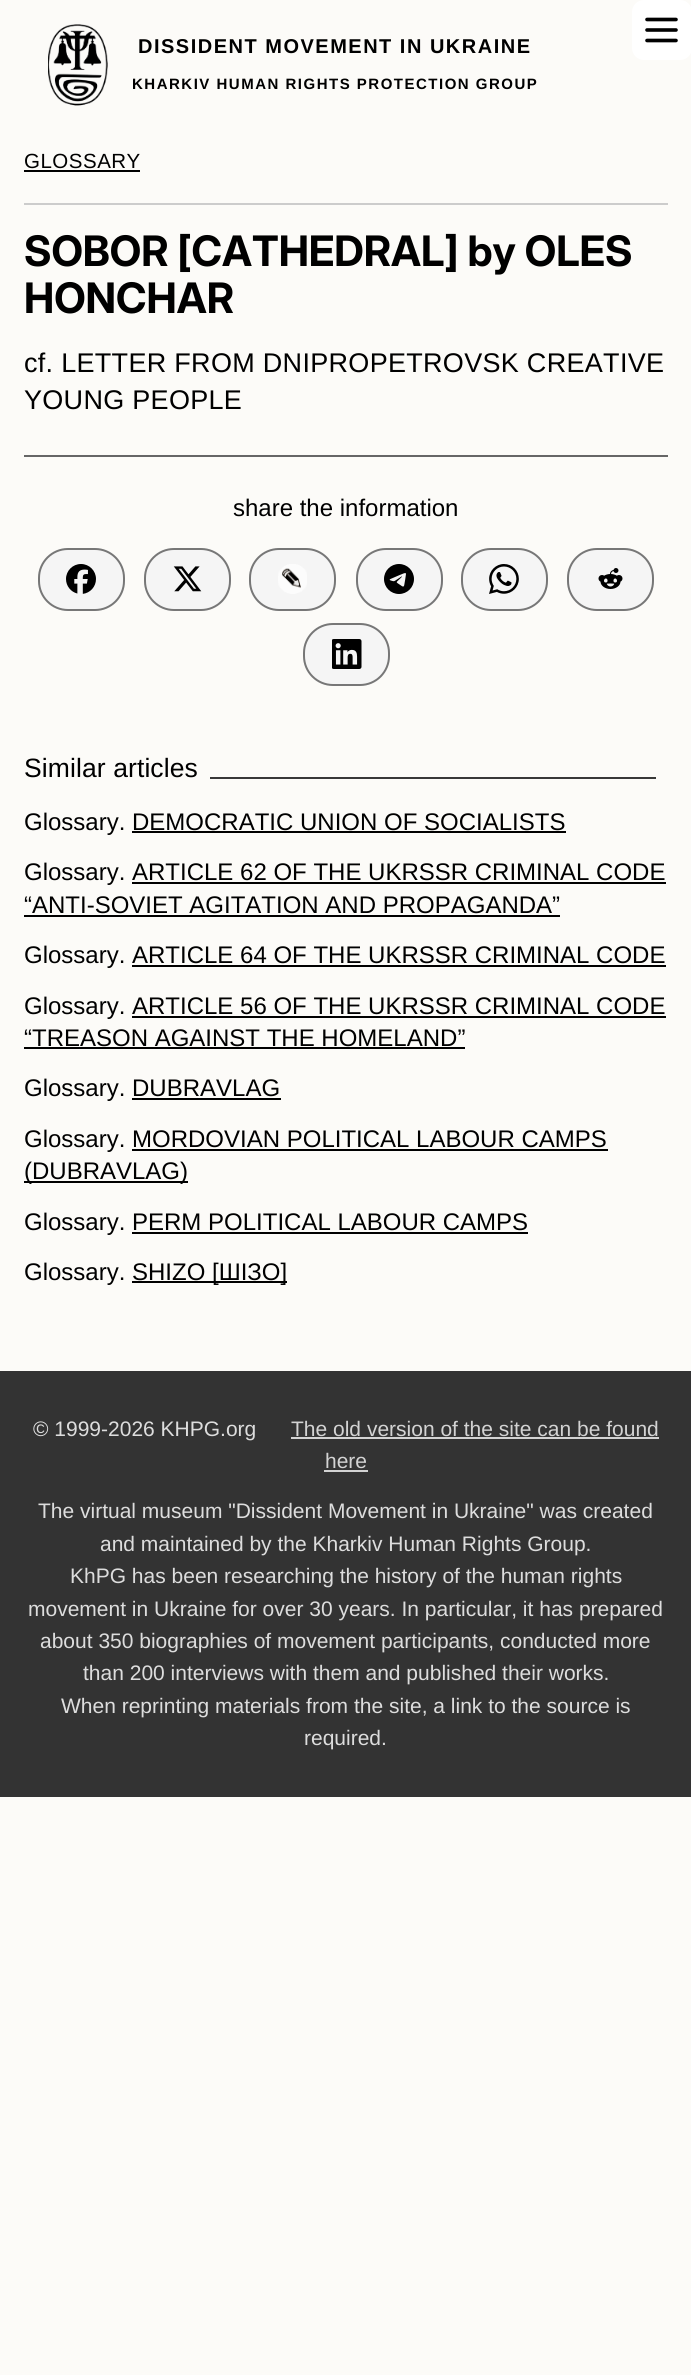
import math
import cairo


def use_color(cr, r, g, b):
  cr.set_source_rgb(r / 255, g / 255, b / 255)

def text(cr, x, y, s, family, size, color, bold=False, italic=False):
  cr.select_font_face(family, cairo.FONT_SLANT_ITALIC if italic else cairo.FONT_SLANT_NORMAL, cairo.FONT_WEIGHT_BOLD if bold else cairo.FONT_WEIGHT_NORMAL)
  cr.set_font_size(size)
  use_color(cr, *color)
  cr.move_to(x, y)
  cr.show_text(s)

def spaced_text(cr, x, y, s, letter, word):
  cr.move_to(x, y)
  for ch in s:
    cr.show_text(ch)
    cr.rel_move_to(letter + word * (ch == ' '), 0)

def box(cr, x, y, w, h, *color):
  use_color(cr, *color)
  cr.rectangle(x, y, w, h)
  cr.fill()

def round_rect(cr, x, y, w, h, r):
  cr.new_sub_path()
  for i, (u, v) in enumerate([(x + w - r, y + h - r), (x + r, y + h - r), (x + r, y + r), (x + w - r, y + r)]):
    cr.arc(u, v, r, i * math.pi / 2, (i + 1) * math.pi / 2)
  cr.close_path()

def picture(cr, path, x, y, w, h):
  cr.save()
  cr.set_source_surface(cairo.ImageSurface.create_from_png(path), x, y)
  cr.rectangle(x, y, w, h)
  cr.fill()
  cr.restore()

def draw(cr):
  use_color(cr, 252, 251, 248)
  cr.paint()
  use_color(cr, 255, 255, 255)
  round_rect(cr, 632, 0, 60, 60, 12)
  cr.fill()
  cr.new_path()
  cr.move_to(647, 19.5)
  cr.line_to(676, 19.5)
  cr.move_to(647, 30)
  cr.line_to(676, 30)
  cr.move_to(647, 40.5)
  cr.line_to(676, 40.5)
  use_color(cr, 0, 0, 0)
  cr.set_line_width(3.6)
  cr.set_line_cap(cairo.LINE_CAP_ROUND)
  cr.set_line_join(cairo.LINE_JOIN_ROUND)
  cr.stroke()
  picture(cr, "img_01.png", 48, 24, 60, 82)
  box(cr, 24, 170, 116, 2, 0, 0, 0)
  box(cr, 24, 203, 644, 2, 204, 204, 204)
  box(cr, 24, 455, 644, 2, 102, 102, 102)
  use_color(cr, 245, 245, 245)
  round_rect(cr, 38, 548, 87, 63, 30)
  cr.fill()
  picture(cr, "img_02.png", 66, 564, 30, 30)
  round_rect(cr, 39, 549, 85, 61, 29)
  use_color(cr, 119, 119, 119)
  cr.set_line_width(2)
  cr.set_line_cap(cairo.LINE_CAP_BUTT)
  cr.set_line_join(cairo.LINE_JOIN_MITER)
  cr.stroke()
  use_color(cr, 245, 245, 245)
  round_rect(cr, 144, 548, 87, 63, 30)
  cr.fill()
  picture(cr, "img_03.png", 173, 566, 29, 26)
  round_rect(cr, 145, 549, 85, 61, 29)
  use_color(cr, 119, 119, 119)
  cr.stroke()
  use_color(cr, 245, 245, 245)
  round_rect(cr, 249, 548, 87, 63, 30)
  cr.fill()
  picture(cr, "img_04.png", 278, 564, 29, 30)
  round_rect(cr, 250, 549, 85, 61, 29)
  use_color(cr, 119, 119, 119)
  cr.stroke()
  use_color(cr, 245, 245, 245)
  round_rect(cr, 356, 548, 87, 63, 30)
  cr.fill()
  picture(cr, "img_05.png", 384, 564, 30, 30)
  round_rect(cr, 357, 549, 85, 61, 29)
  use_color(cr, 119, 119, 119)
  cr.stroke()
  use_color(cr, 245, 245, 245)
  round_rect(cr, 461, 548, 87, 63, 30)
  cr.fill()
  picture(cr, "img_06.png", 489, 564, 30, 30)
  round_rect(cr, 462, 549, 85, 61, 29)
  use_color(cr, 119, 119, 119)
  cr.stroke()
  use_color(cr, 245, 245, 245)
  round_rect(cr, 567, 548, 87, 63, 30)
  cr.fill()
  picture(cr, "img_07.png", 598, 568, 25, 21)
  round_rect(cr, 568, 549, 85, 61, 29)
  use_color(cr, 119, 119, 119)
  cr.stroke()
  use_color(cr, 245, 245, 245)
  round_rect(cr, 303, 623, 87, 63, 30)
  cr.fill()
  picture(cr, "img_08.png", 332, 639, 30, 30)
  round_rect(cr, 304, 624, 85, 61, 29)
  use_color(cr, 119, 119, 119)
  cr.stroke()
  box(cr, 210, 777, 446, 2, 56, 56, 56)
  box(cr, 132, 831, 434, 2, 0, 0, 0)
  box(cr, 132, 882, 534, 2, 0, 0, 0)
  box(cr, 24, 915, 536, 2, 0, 0, 0)
  box(cr, 132, 965, 534, 2, 0, 0, 0)
  box(cr, 132, 1016, 534, 2, 0, 0, 0)
  box(cr, 24, 1047, 441, 2, 0, 0, 0)
  box(cr, 132, 1098, 149, 2, 0, 0, 0)
  box(cr, 132, 1149, 476, 2, 0, 0, 0)
  box(cr, 24, 1181, 164, 2, 0, 0, 0)
  box(cr, 132, 1232, 396, 2, 0, 0, 0)
  box(cr, 132, 1281, 155, 2, 0, 0, 0)
  box(cr, 0, 1371, 691, 426, 51, 51, 51)
  box(cr, 291, 1437, 368, 2, 211, 211, 211)
  box(cr, 324, 1470, 44, 2, 211, 211, 211)
  cr.select_font_face("Liberation Sans", cairo.FONT_SLANT_NORMAL, cairo.FONT_WEIGHT_BOLD)
  cr.set_font_size(20)
  use_color(cr, 0, 0, 0)
  spaced_text(cr, 138, 53, "DISSIDENT MOVEMENT IN UKRAINE", 1.5, 0)
  cr.set_font_size(15)
  spaced_text(cr, 132, 89, "KHARKIV HUMAN RIGHTS PROTECTION GROUP", 1.5, 0)
  cr.select_font_face("Liberation Sans")
  cr.set_font_size(20.5)
  spaced_text(cr, 24, 168, "GLOSSARY", 0.5, 0)
  text(cr, 24, 266, "SOBOR [CATHEDRAL] by OLES", "Inter Display", 42, (0, 0, 0), bold=True)
  text(cr, 24, 313, "HONCHAR", "Inter Display", 42, (0, 0, 0), bold=True)
  cr.select_font_face("Liberation Sans")
  cr.set_font_size(27)
  spaced_text(cr, 24, 372, "cf. LETTER FROM DNIPROPETROVSK CREATIVE", 0.3, 0)
  spaced_text(cr, 24, 409, "YOUNG PEOPLE", 0.3, 0)
  text(cr, 233, 516, "share the information", "Liberation Sans", 24, (0, 0, 0))
  cr.set_font_size(26.5)
  spaced_text(cr, 24, 777, "Similar articles", 0.1, 0)
  text(cr, 24, 830, "Glossary. DEMOCRATIC UNION OF SOCIALISTS", "Liberation Sans", 24, (0, 0, 0))
  text(cr, 24, 880, "Glossary. ARTICLE 62 OF THE UKRSSR CRIMINAL CODE", "Liberation Sans", 24, (0, 0, 0))
  text(cr, 24, 913, "“ANTI-SOVIET AGITATION AND PROPAGANDA”", "Liberation Sans", 24, (0, 0, 0))
  text(cr, 24, 963, "Glossary. ARTICLE 64 OF THE UKRSSR CRIMINAL CODE", "Liberation Sans", 24, (0, 0, 0))
  text(cr, 24, 1014, "Glossary. ARTICLE 56 OF THE UKRSSR CRIMINAL CODE", "Liberation Sans", 24, (0, 0, 0))
  text(cr, 24, 1046, "“TREASON AGAINST THE HOMELAND”", "Liberation Sans", 24, (0, 0, 0))
  text(cr, 24, 1096, "Glossary. DUBRAVLAG", "Liberation Sans", 24, (0, 0, 0))
  text(cr, 24, 1147, "Glossary. MORDOVIAN POLITICAL LABOUR CAMPS", "Liberation Sans", 24, (0, 0, 0))
  text(cr, 24, 1179, "(DUBRAVLAG)", "Liberation Sans", 24, (0, 0, 0))
  text(cr, 24, 1230, "Glossary. PERM POLITICAL LABOUR CAMPS", "Liberation Sans", 24, (0, 0, 0))
  text(cr, 24, 1280, "Glossary.", "Liberation Sans", 24, (0, 0, 0))
  text(cr, 132, 1280, "SHIZO [ШІЗО]", "Liberation Sans", 24, (0, 0, 0))
  text(cr, 33, 1436, "© 1999-2026 KHPG.org", "Liberation Sans", 21, (221, 221, 221))
  text(cr, 291, 1436, "The old version of the site can be found", "Liberation Sans", 21, (211, 211, 211))
  text(cr, 325, 1468, "here", "Liberation Sans", 21, (211, 211, 211))
  text(cr, 38, 1518, "The virtual museum \"Dissident Movement in Ukraine\" was created", "Liberation Sans", 21, (221, 221, 221))
  text(cr, 100, 1551, "and maintained by the Kharkiv Human Rights Group.", "Liberation Sans", 21, (221, 221, 221))
  text(cr, 70, 1583, "KhPG has been researching the history of the human rights", "Liberation Sans", 21, (221, 221, 221))
  text(cr, 28, 1616, "movement in Ukraine for over 30 years. In particular, it has prepared", "Liberation Sans", 21, (221, 221, 221))
  text(cr, 40, 1648, "about 350 biographies of movement participants, conducted more", "Liberation Sans", 21, (221, 221, 221))
  text(cr, 83, 1680, "than 200 interviews with them and published their works.", "Liberation Sans", 21, (221, 221, 221))
  text(cr, 61, 1713, "When reprinting materials from the site, a link to the source is", "Liberation Sans", 21, (221, 221, 221))
  text(cr, 304, 1745, "required.", "Liberation Sans", 21, (221, 221, 221))


surface = cairo.ImageSurface(cairo.FORMAT_RGB24, 691, 2375)
cr = cairo.Context(surface)
options = cairo.FontOptions()
options.set_hint_metrics(cairo.HINT_METRICS_OFF)
options.set_hint_style(cairo.HINT_STYLE_NONE)
cr.set_font_options(options)
cr.set_miter_limit(4)
draw(cr)
surface.write_to_png("out.png")
